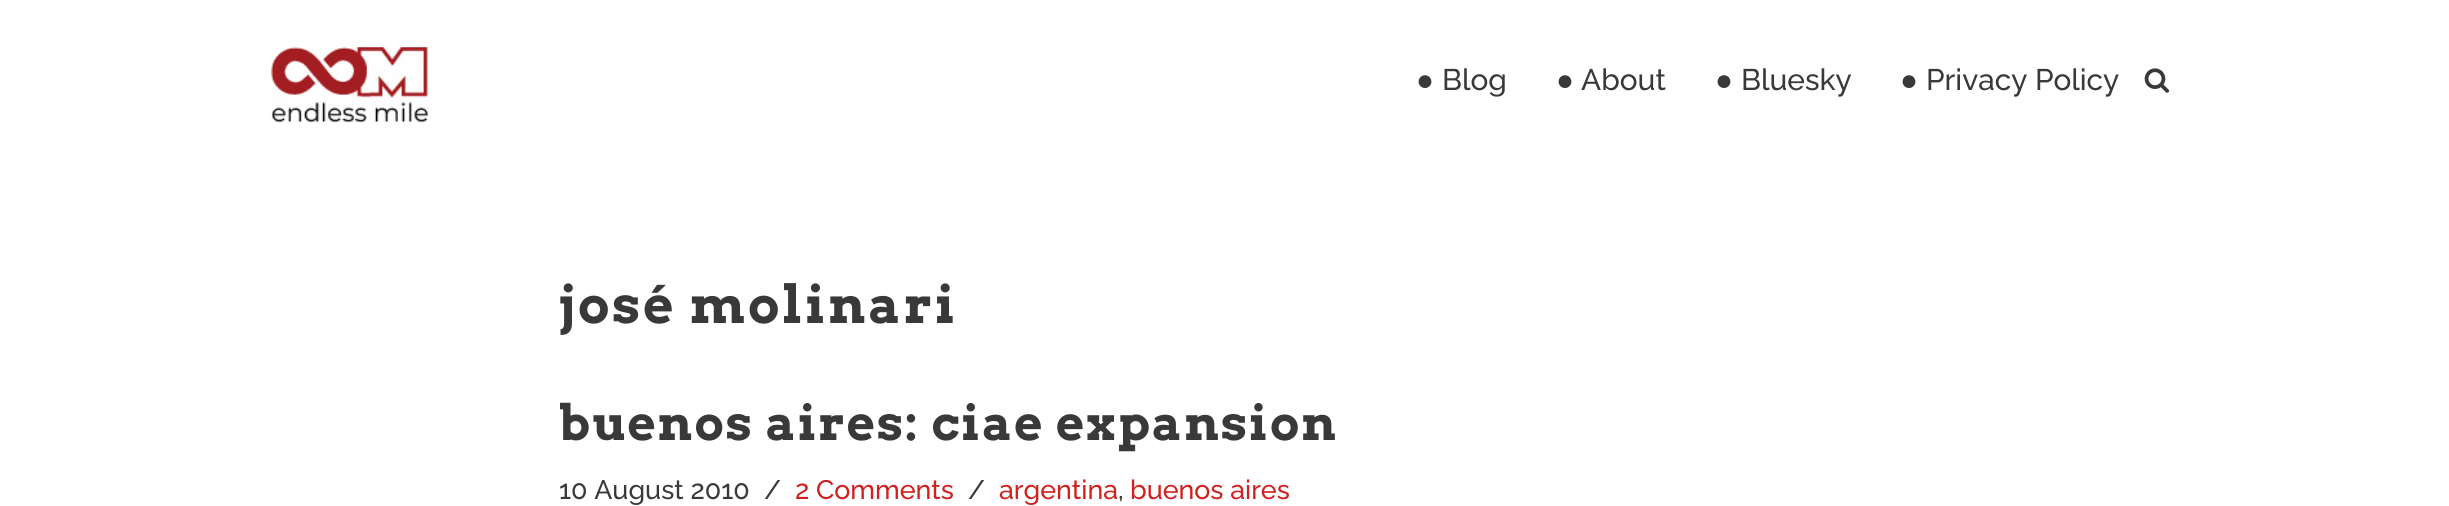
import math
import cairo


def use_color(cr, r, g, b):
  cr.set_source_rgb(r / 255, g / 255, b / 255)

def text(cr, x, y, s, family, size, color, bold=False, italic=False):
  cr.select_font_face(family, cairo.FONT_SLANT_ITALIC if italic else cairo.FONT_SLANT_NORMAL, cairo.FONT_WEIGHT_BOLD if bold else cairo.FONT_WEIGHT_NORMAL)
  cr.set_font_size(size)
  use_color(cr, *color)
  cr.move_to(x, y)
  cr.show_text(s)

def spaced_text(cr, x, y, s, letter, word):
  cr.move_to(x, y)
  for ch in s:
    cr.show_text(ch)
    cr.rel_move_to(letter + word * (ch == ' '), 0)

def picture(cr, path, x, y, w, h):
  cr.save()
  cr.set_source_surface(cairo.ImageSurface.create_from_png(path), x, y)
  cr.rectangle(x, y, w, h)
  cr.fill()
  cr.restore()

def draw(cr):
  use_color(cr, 255, 255, 255)
  cr.paint()
  picture(cr, "img_01.png", 271, 47, 158, 76)
  picture(cr, "img_02.png", 2144, 68, 25, 25)
  text(cr, 1416, 90, "●", "Liberation Serif", 29.75, (57, 57, 57))
  text(cr, 1442, 90, "Blog", "Raleway Medium", 29.75, (57, 57, 57))
  text(cr, 1556, 90, "●", "Liberation Serif", 29.75, (57, 57, 57))
  text(cr, 1581, 90, "About", "Raleway Medium", 29.75, (57, 57, 57))
  text(cr, 1715, 90, "●", "Liberation Serif", 29.75, (57, 57, 57))
  text(cr, 1741, 90, "Bluesky", "Raleway Medium", 29.75, (57, 57, 57))
  text(cr, 1900, 90, "●", "Liberation Serif", 29.75, (57, 57, 57))
  text(cr, 1926, 90, "Privacy Policy", "Raleway Medium", 29.75, (57, 57, 57))
  cr.select_font_face("Arvo", cairo.FONT_SLANT_NORMAL, cairo.FONT_WEIGHT_BOLD)
  cr.set_font_size(52.5)
  spaced_text(cr, 559, 323, "josé molinari", 2.75, 0)
  cr.save()
  cr.rectangle(560, 396, 1332, 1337)
  cr.clip()
  cr.set_font_size(49)
  spaced_text(cr, 559, 440, "buenos aires: ciae expansion", 1.75, 0)
  cr.restore()
  text(cr, 559, 499, "10 August 2010", "Raleway Medium", 26.75, (57, 57, 57))
  text(cr, 764, 499, "/", "Raleway Medium", 26.75, (57, 57, 57))
  text(cr, 795, 499, "2 Comments", "Raleway Medium", 26.75, (208, 33, 30))
  text(cr, 968, 499, "/", "Raleway Medium", 26.75, (57, 57, 57))
  text(cr, 999, 499, "argentina", "Raleway Medium", 26.75, (208, 33, 30))
  text(cr, 1118, 499, ",", "Raleway Medium", 26.75, (57, 57, 57))
  text(cr, 1130, 499, "buenos aires", "Raleway Medium", 26.75, (208, 33, 30))


surface = cairo.ImageSurface(cairo.FORMAT_RGB24, 2449, 506)
cr = cairo.Context(surface)
options = cairo.FontOptions()
options.set_hint_metrics(cairo.HINT_METRICS_OFF)
options.set_hint_style(cairo.HINT_STYLE_NONE)
cr.set_font_options(options)
cr.set_miter_limit(4)
draw(cr)
surface.write_to_png("out.png")
